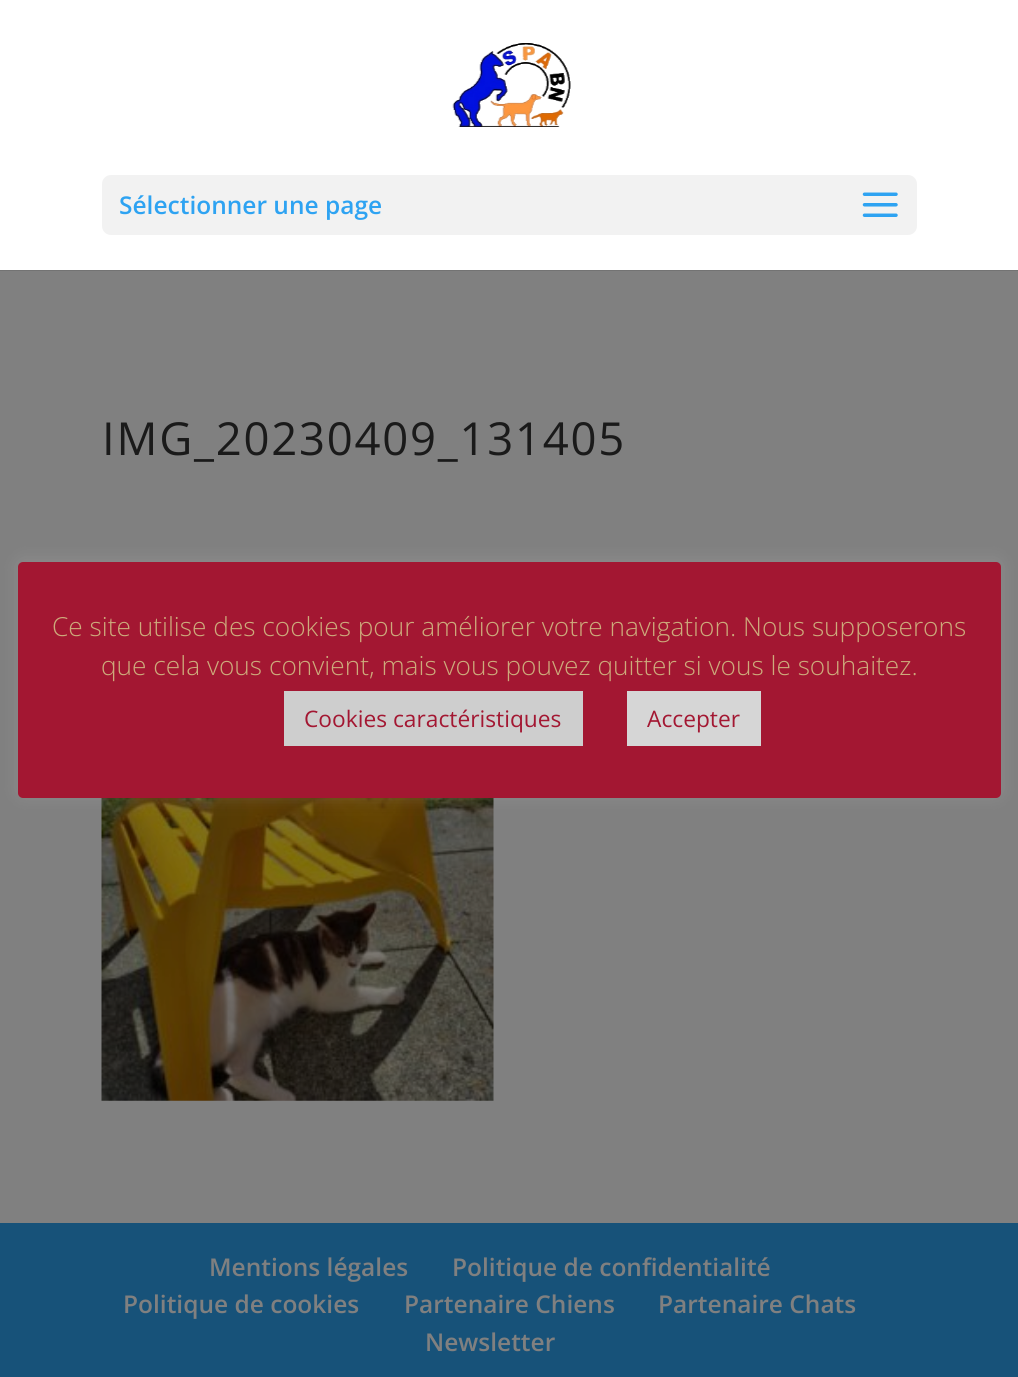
import math
import cairo


def use_color(cr, r, g, b):
  cr.set_source_rgb(r / 255, g / 255, b / 255)

def text(cr, x, y, s, family, size, color, bold=False, italic=False):
  cr.select_font_face(family, cairo.FONT_SLANT_ITALIC if italic else cairo.FONT_SLANT_NORMAL, cairo.FONT_WEIGHT_BOLD if bold else cairo.FONT_WEIGHT_NORMAL)
  cr.set_font_size(size)
  use_color(cr, *color)
  cr.move_to(x, y)
  cr.show_text(s)

def spaced_text(cr, x, y, s, letter, word):
  cr.move_to(x, y)
  for ch in s:
    cr.show_text(ch)
    cr.rel_move_to(letter + word * (ch == ' '), 0)

def box(cr, x, y, w, h, *color):
  use_color(cr, *color)
  cr.rectangle(x, y, w, h)
  cr.fill()

def round_rect(cr, x, y, w, h, r):
  cr.new_sub_path()
  for i, (u, v) in enumerate([(x + w - r, y + h - r), (x + r, y + h - r), (x + r, y + r), (x + w - r, y + r)]):
    cr.arc(u, v, r, i * math.pi / 2, (i + 1) * math.pi / 2)
  cr.close_path()

def shadow(cr, x, y, w, h, r, blur, alpha):
  cr.push_group_with_content(cairo.CONTENT_ALPHA)
  cr.set_operator(cairo.OPERATOR_SOURCE)
  for i in range(15, -16, -2):
    e = blur * i / 6
    if min(w, h) + 2 * e > 0:
      cr.set_source_rgba(0, 0, 0, alpha * math.erfc((i - 1) / 8.5) / 2)
      round_rect(cr, x - e, y - e, w + 2 * e, h + 2 * e, max(0, min(r + e + blur * .6, min(w, h) / 2 + e)))
      cr.fill()
  cr.mask(cr.pop_group())

def picture(cr, path, x, y, w, h):
  cr.save()
  cr.set_source_surface(cairo.ImageSurface.create_from_png(path), x, y)
  cr.rectangle(x, y, w, h)
  cr.fill()
  cr.restore()

def draw(cr):
  use_color(cr, 128, 128, 128)
  cr.paint()
  use_color(cr, 115, 115, 115)
  cr.new_path()
  cr.move_to(0, 270)
  cr.line_to(0, 271)
  cr.line_to(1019, 271)
  cr.line_to(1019, 2)
  cr.line_to(1018, 2)
  cr.line_to(1018, 270)
  cr.close_path()
  cr.fill()
  box(cr, 0, 0, 1018, 270, 255, 255, 255)
  picture(cr, "img_01.png", 452, 43, 119, 84)
  use_color(cr, 242, 242, 242)
  round_rect(cr, 102, 175, 815, 60, 9)
  cr.fill()
  picture(cr, "img_02.png", 862, 192, 36, 25)
  picture(cr, "img_03.png", 101, 798, 393, 303)
  box(cr, 0, 1223, 1018, 154, 23, 82, 121)
  use_color(cr, 172, 171, 171)
  shadow(cr, 18, 560, 983, 236, 5, 9, 0.3)
  use_color(cr, 163, 23, 50)
  round_rect(cr, 18, 562, 983, 236, 5)
  cr.fill()
  box(cr, 284, 691, 299, 55, 206, 206, 206)
  box(cr, 627, 691, 134, 55, 214, 214, 214)
  text(cr, 119, 214, "Sélectionner une page", "Open Sans SemiBold", 24.5, (46, 163, 242))
  cr.select_font_face("Open Sans")
  cr.set_font_size(45.5)
  use_color(cr, 26, 26, 26)
  spaced_text(cr, 102, 455, "IMG_20230409_131405", 1.75, 0)
  text(cr, 209, 1276, "Mentions légales", "Open Sans SemiBold", 24.5, (128, 128, 128))
  text(cr, 452, 1276, "Politique de confidentialité", "Open Sans SemiBold", 24.5, (128, 128, 128))
  text(cr, 123, 1313, "Politique de cookies", "Open Sans SemiBold", 24.5, (128, 128, 128))
  text(cr, 404, 1313, "Partenaire Chiens", "Open Sans SemiBold", 24.5, (128, 128, 128))
  text(cr, 658, 1313, "Partenaire Chats", "Open Sans SemiBold", 24.5, (128, 128, 128))
  text(cr, 425, 1351, "Newsletter", "Open Sans SemiBold", 24.5, (128, 128, 128))
  text(cr, 52, 636, "Ce site utilise des cookies pour améliorer votre navigation. Nous supposerons", "Open Sans Light", 26.25, (205, 171, 123))
  text(cr, 101, 675, "que cela vous convient, mais vous pouvez quitter si vous le souhaitez.", "Open Sans Light", 26.25, (205, 171, 123))
  text(cr, 304, 727, "Cookies caractéristiques", "Open Sans", 22.75, (163, 23, 50))
  text(cr, 647, 727, "Accepter", "Open Sans", 22.75, (163, 23, 50))


surface = cairo.ImageSurface(cairo.FORMAT_RGB24, 1018, 1377)
cr = cairo.Context(surface)
options = cairo.FontOptions()
options.set_hint_metrics(cairo.HINT_METRICS_OFF)
options.set_hint_style(cairo.HINT_STYLE_NONE)
cr.set_font_options(options)
cr.set_miter_limit(4)
draw(cr)
surface.write_to_png("out.png")
